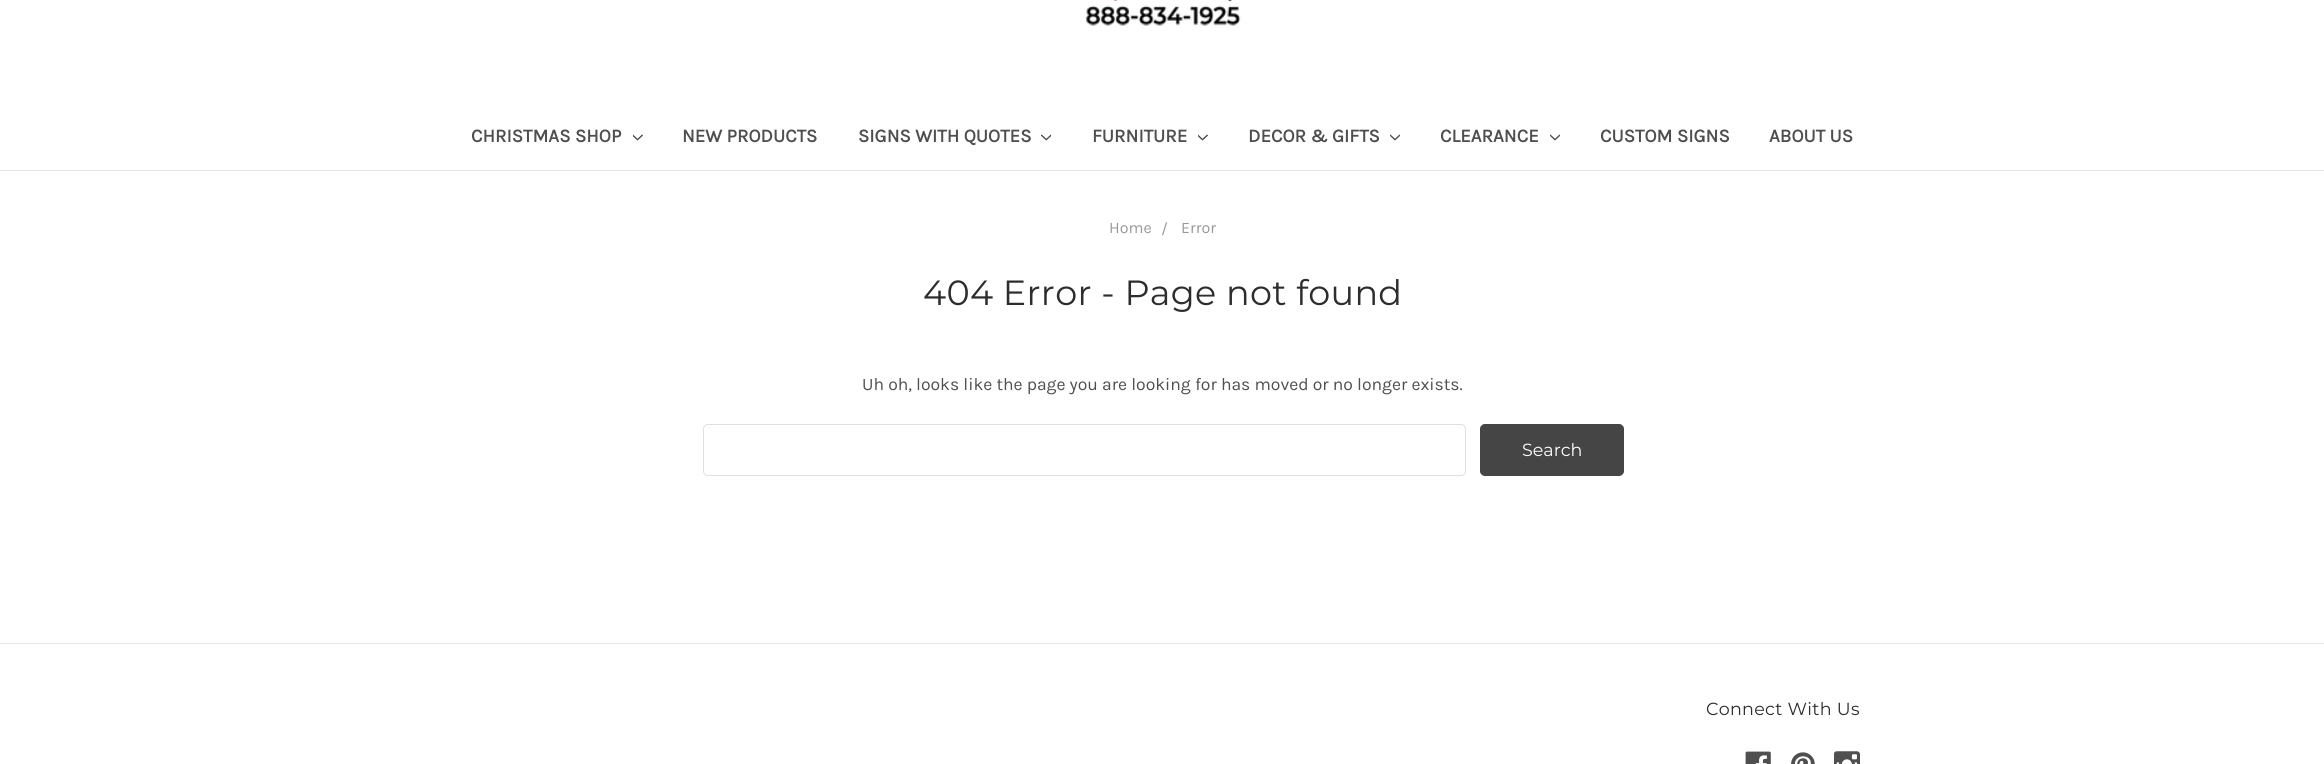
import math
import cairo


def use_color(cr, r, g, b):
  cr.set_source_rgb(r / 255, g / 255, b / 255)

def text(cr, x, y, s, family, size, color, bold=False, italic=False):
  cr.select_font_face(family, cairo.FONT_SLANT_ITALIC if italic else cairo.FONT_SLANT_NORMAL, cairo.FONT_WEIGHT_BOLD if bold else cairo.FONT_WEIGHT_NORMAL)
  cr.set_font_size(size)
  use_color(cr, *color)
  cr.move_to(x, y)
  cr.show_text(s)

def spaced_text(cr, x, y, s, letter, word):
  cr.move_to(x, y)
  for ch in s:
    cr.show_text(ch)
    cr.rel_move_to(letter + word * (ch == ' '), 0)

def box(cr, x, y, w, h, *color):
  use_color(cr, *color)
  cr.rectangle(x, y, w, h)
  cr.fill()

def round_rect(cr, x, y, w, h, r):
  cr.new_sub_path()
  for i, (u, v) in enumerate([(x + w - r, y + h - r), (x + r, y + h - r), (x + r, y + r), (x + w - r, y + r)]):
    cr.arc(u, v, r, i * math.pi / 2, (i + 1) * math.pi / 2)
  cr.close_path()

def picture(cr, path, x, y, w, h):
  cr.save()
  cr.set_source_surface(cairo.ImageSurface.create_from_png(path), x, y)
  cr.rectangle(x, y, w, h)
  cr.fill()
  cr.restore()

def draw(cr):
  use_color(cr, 255, 255, 255)
  cr.paint()
  box(cr, 0, 170, 2324, 1, 232, 232, 232)
  picture(cr, "img_01.png", 1086, 0, 155, 26)
  picture(cr, "img_02.png", 633, 134, 10, 7)
  picture(cr, "img_03.png", 1041, 134, 10, 7)
  picture(cr, "img_02.png", 1198, 134, 10, 7)
  picture(cr, "img_04.png", 1390, 134, 10, 7)
  picture(cr, "img_04.png", 1550, 134, 10, 7)
  round_rect(cr, 703.5, 424.5, 762, 51, 4.5)
  use_color(cr, 223, 223, 223)
  cr.set_line_width(1)
  cr.stroke()
  use_color(cr, 69, 69, 69)
  round_rect(cr, 1480.5, 424.5, 143, 51, 4.5)
  cr.fill_preserve()
  cr.stroke()
  box(cr, 0, 643, 2324, 1, 232, 232, 232)
  picture(cr, "img_05.png", 1745, 751, 26, 13)
  picture(cr, "img_06.png", 1791, 752, 24, 12)
  picture(cr, "img_07.png", 1834, 751, 26, 13)
  text(cr, 471, 142, "CHRISTMAS SHOP", "Karla", 18.75, (79, 79, 79), bold=True)
  text(cr, 682, 142, "NEW PRODUCTS", "Karla", 18.75, (79, 79, 79), bold=True)
  text(cr, 858, 142, "SIGNS WITH QUOTES", "Karla", 18.75, (79, 79, 79), bold=True)
  text(cr, 1092, 142, "FURNITURE", "Karla", 18.75, (79, 79, 79), bold=True)
  text(cr, 1248, 142, "DECOR & GIFTS", "Karla", 18.75, (79, 79, 79), bold=True)
  text(cr, 1440, 142, "CLEARANCE", "Karla", 18.75, (79, 79, 79), bold=True)
  text(cr, 1600, 142, "CUSTOM SIGNS", "Karla", 18.75, (79, 79, 79), bold=True)
  text(cr, 1769, 142, "ABOUT US", "Karla", 18.75, (79, 79, 79), bold=True)
  text(cr, 1109, 233, "Home", "Karla", 16, (152, 152, 152))
  text(cr, 1161, 234, "/", "Karla", 16, (152, 152, 152))
  text(cr, 1181, 233, "Error", "Karla", 16, (152, 152, 152))
  cr.select_font_face("Montserrat Thin")
  cr.set_font_size(35)
  use_color(cr, 45, 45, 45)
  spaced_text(cr, 923, 305, "404 Error - Page not found", 0.3, 0)
  text(cr, 862, 390, "Uh oh, looks like the page you are looking for has moved or no longer exists.", "Karla", 17.5, (79, 79, 79))
  text(cr, 1522, 456, "Search", "Montserrat Thin", 17.5, (255, 255, 255))
  use_color(cr, 45, 45, 45)
  spaced_text(cr, 1706, 715, "Connect With Us", 0.3, 0)


surface = cairo.ImageSurface(cairo.FORMAT_RGB24, 2324, 764)
cr = cairo.Context(surface)
options = cairo.FontOptions()
options.set_hint_metrics(cairo.HINT_METRICS_OFF)
options.set_hint_style(cairo.HINT_STYLE_NONE)
cr.set_font_options(options)
cr.set_miter_limit(4)
draw(cr)
surface.write_to_png("out.png")
